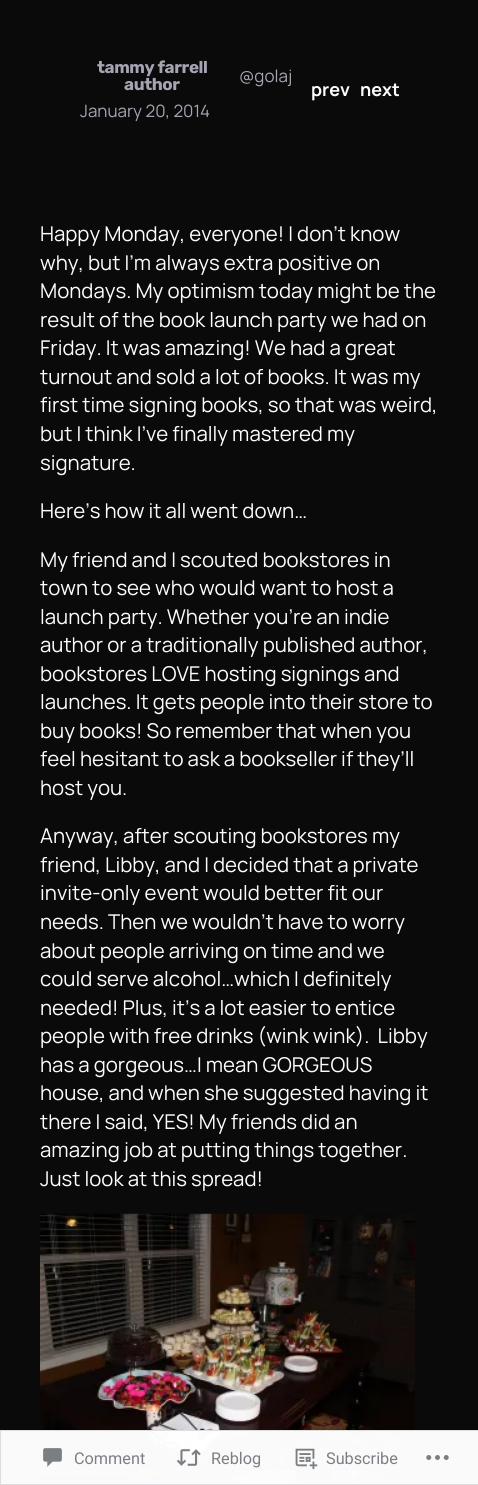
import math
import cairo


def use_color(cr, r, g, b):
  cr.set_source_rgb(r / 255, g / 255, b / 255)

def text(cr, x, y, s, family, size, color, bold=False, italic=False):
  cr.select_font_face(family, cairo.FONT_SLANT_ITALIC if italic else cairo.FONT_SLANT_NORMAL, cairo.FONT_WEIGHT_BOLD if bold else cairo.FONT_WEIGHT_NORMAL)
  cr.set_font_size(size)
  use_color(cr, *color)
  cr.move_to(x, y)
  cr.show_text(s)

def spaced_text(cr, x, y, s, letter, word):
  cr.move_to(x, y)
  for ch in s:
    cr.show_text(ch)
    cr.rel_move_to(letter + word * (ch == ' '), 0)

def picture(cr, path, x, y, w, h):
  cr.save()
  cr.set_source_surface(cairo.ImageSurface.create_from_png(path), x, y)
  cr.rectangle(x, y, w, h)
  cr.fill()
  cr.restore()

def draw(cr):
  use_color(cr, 10, 10, 10)
  cr.paint()
  picture(cr, "img_01.png", 40, 1213, 375, 251)
  picture(cr, "img_02.png", 40, 1470, 375, 15)
  cr.set_source_rgba(1, 1, 1, 0.98)
  cr.rectangle(0, 1430, 478, 55)
  cr.fill()
  cr.rectangle(0.5, 1430.5, 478, 54)
  cr.set_source_rgba(0.863, 0.863, 0.871, 0.98)
  cr.set_line_width(1)
  cr.stroke()
  picture(cr, "img_03.png", 43, 1448, 19, 19)
  picture(cr, "img_04.png", 176, 1449, 25, 17)
  picture(cr, "img_05.png", 295, 1448, 23, 22)
  picture(cr, "img_06.png", 426, 1455, 23, 5)
  cr.select_font_face("Rubik", cairo.FONT_SLANT_NORMAL, cairo.FONT_WEIGHT_BOLD)
  cr.set_font_size(17)
  use_color(cr, 165, 164, 178)
  spaced_text(cr, 97, 73, "tammy farrell", -0.4, 0)
  spaced_text(cr, 124, 90, "author", -0.4, 0)
  text(cr, 239, 82, "@golaj", "Manrope", 17, (165, 164, 178))
  text(cr, 80, 117, "January 20, 2014", "Manrope", 17, (165, 164, 178))
  text(cr, 311, 96, "prev", "Manrope", 18, (253, 253, 253), bold=True)
  text(cr, 360, 96, "next", "Manrope", 18, (253, 253, 253), bold=True)
  text(cr, 40, 241, "Happy Monday, everyone! I don’t know", "Manrope", 20.4, (253, 253, 253))
  text(cr, 40, 270, "why, but I’m always extra positive on", "Manrope", 20.4, (253, 253, 253))
  text(cr, 40, 298, "Mondays. My optimism today might be the", "Manrope", 20.4, (253, 253, 253))
  text(cr, 40, 327, "result of the book launch party we had on", "Manrope", 20.4, (253, 253, 253))
  text(cr, 40, 355, "Friday. It was amazing! We had a great", "Manrope", 20.4, (253, 253, 253))
  text(cr, 40, 384, "turnout and sold a lot of books. It was my", "Manrope", 20.4, (253, 253, 253))
  text(cr, 40, 412, "first time signing books, so that was weird,", "Manrope", 20.4, (253, 253, 253))
  text(cr, 40, 441, "but I think I’ve finally mastered my", "Manrope", 20.4, (253, 253, 253))
  text(cr, 40, 470, "signature.", "Manrope", 20.4, (253, 253, 253))
  text(cr, 40, 518, "Here’s how it all went down…", "Manrope", 20.4, (253, 253, 253))
  text(cr, 40, 567, "My friend and I scouted bookstores in", "Manrope", 20.4, (253, 253, 253))
  text(cr, 40, 595, "town to see who would want to host a", "Manrope", 20.4, (253, 253, 253))
  text(cr, 40, 624, "launch party. Whether you’re an indie", "Manrope", 20.4, (253, 253, 253))
  text(cr, 40, 652, "author or a traditionally published author,", "Manrope", 20.4, (253, 253, 253))
  text(cr, 40, 681, "bookstores LOVE hosting signings and", "Manrope", 20.4, (253, 253, 253))
  text(cr, 40, 709, "launches. It gets people into their store to", "Manrope", 20.4, (253, 253, 253))
  text(cr, 40, 738, "buy books! So remember that when you", "Manrope", 20.4, (253, 253, 253))
  text(cr, 40, 766, "feel hesitant to ask a bookseller if they’ll", "Manrope", 20.4, (253, 253, 253))
  text(cr, 40, 795, "host you.", "Manrope", 20.4, (253, 253, 253))
  text(cr, 40, 843, "Anyway, after scouting bookstores my", "Manrope", 20.4, (253, 253, 253))
  text(cr, 40, 872, "friend, Libby, and I decided that a private", "Manrope", 20.4, (253, 253, 253))
  text(cr, 40, 900, "invite-only event would better fit our", "Manrope", 20.4, (253, 253, 253))
  text(cr, 40, 929, "needs. Then we wouldn’t have to worry", "Manrope", 20.4, (253, 253, 253))
  text(cr, 40, 958, "about people arriving on time and we", "Manrope", 20.4, (253, 253, 253))
  text(cr, 40, 986, "could serve alcohol…which I definitely", "Manrope", 20.4, (253, 253, 253))
  text(cr, 40, 1015, "needed! Plus, it’s a lot easier to entice", "Manrope", 20.4, (253, 253, 253))
  text(cr, 40, 1043, "people with free drinks (wink wink).  Libby", "Manrope", 20.4, (253, 253, 253))
  text(cr, 40, 1072, "has a gorgeous…I mean GORGEOUS", "Manrope", 20.4, (253, 253, 253))
  text(cr, 40, 1100, "house, and when she suggested having it", "Manrope", 20.4, (253, 253, 253))
  text(cr, 40, 1129, "there I said, YES! My friends did an", "Manrope", 20.4, (253, 253, 253))
  text(cr, 40, 1157, "amazing job at putting things together.", "Manrope", 20.4, (253, 253, 253))
  text(cr, 40, 1186, "Just look at this spread!", "Manrope", 20.4, (253, 253, 253))
  text(cr, 74, 1464, "Comment", "Roboto", 16.25, (123, 127, 132))
  text(cr, 211, 1464, "Reblog", "Roboto", 16.25, (123, 127, 132))
  text(cr, 326, 1464, "Subscribe", "Roboto", 16.25, (123, 127, 132))


surface = cairo.ImageSurface(cairo.FORMAT_RGB24, 478, 1485)
cr = cairo.Context(surface)
options = cairo.FontOptions()
options.set_hint_metrics(cairo.HINT_METRICS_OFF)
options.set_hint_style(cairo.HINT_STYLE_NONE)
cr.set_font_options(options)
cr.set_miter_limit(4)
draw(cr)
surface.write_to_png("out.png")
